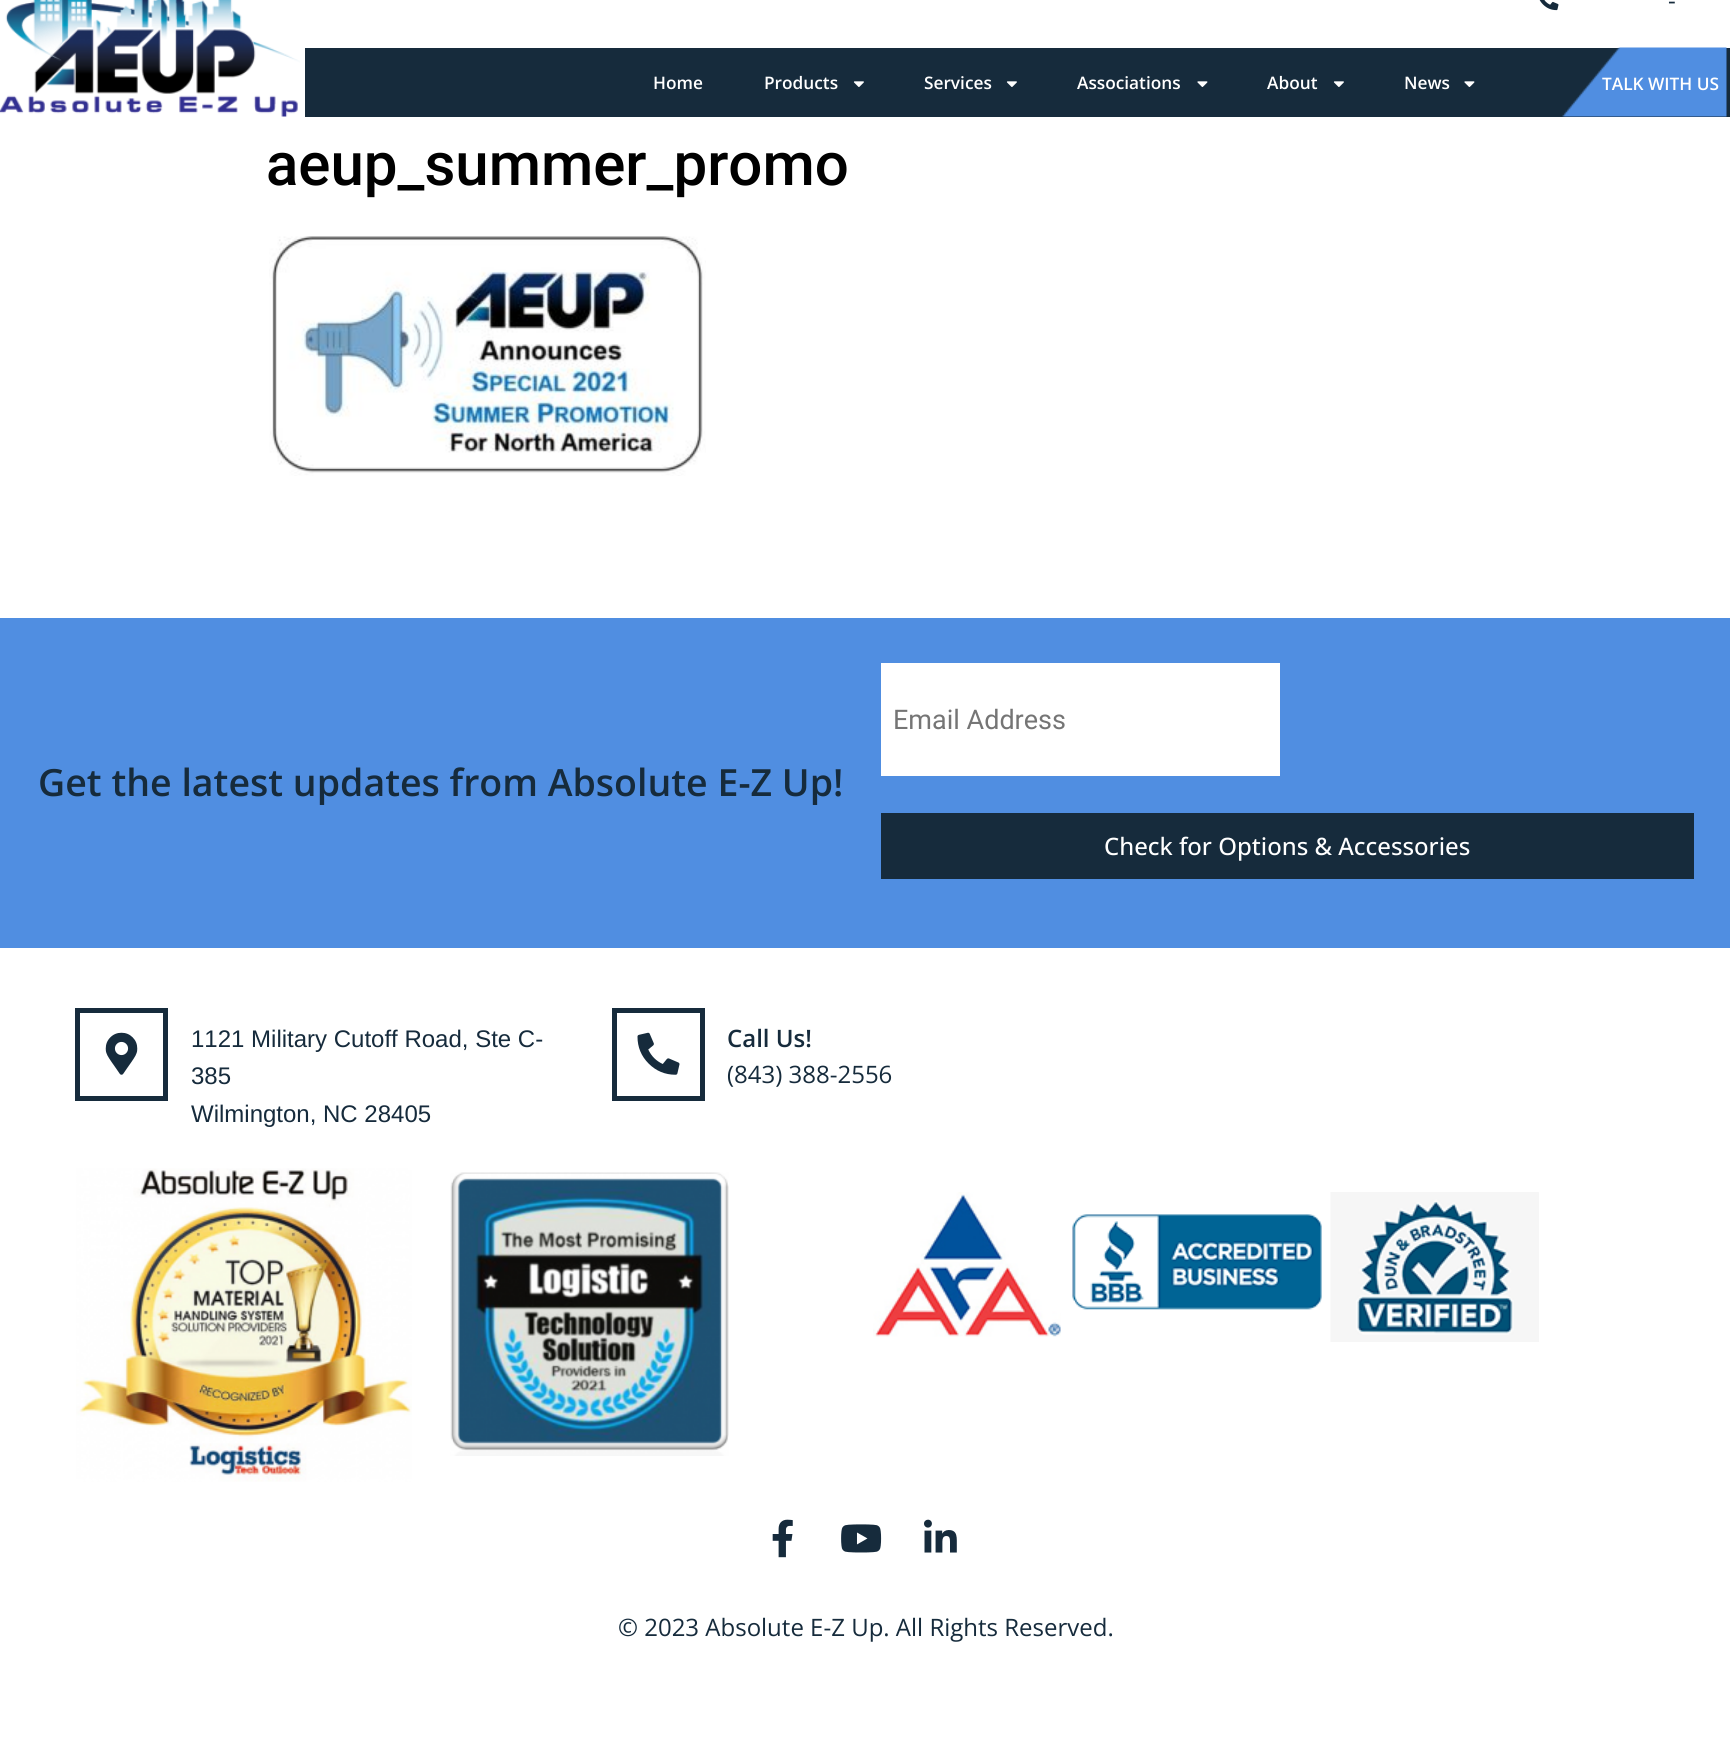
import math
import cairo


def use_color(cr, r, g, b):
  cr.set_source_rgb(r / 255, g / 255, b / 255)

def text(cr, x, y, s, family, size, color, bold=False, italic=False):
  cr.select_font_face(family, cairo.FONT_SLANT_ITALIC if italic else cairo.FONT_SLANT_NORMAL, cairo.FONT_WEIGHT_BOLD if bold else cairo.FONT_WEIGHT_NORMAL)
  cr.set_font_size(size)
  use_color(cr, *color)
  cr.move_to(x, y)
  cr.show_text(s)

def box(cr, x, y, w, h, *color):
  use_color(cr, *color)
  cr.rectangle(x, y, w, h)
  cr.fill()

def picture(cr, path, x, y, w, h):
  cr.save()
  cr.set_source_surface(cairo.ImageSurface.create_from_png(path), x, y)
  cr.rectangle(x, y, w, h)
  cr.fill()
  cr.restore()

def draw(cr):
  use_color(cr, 255, 255, 255)
  cr.paint()
  picture(cr, "img_01.png", 0, 0, 300, 117)
  picture(cr, "img_02.png", 1539, 0, 20, 11)
  box(cr, 305, 48, 1425, 69, 22, 43, 60)
  picture(cr, "img_03.png", 853, 81, 11, 6)
  picture(cr, "img_03.png", 1006, 81, 11, 6)
  picture(cr, "img_04.png", 1197, 81, 11, 6)
  picture(cr, "img_03.png", 1333, 81, 11, 6)
  picture(cr, "img_04.png", 1464, 81, 11, 6)
  picture(cr, "img_05.png", 1562, 47, 165, 70)
  picture(cr, "img_06.png", 269, 236, 437, 240)
  box(cr, 0, 618, 1730, 330, 80, 142, 225)
  box(cr, 881, 663, 399, 113, 255, 255, 255)
  box(cr, 881, 813, 813, 66, 22, 43, 60)
  cr.rectangle(77.5, 1010.5, 88, 88)
  cr.set_line_width(5)
  cr.stroke()
  picture(cr, "img_07.png", 105, 1032, 33, 43)
  cr.rectangle(614.5, 1010.5, 88, 88)
  cr.stroke()
  picture(cr, "img_08.png", 637, 1032, 43, 43)
  picture(cr, "img_09.png", 76, 1168, 336, 314)
  picture(cr, "img_10.png", 450, 1172, 279, 284)
  picture(cr, "img_11.png", 873, 1192, 188, 145)
  picture(cr, "img_12.png", 1072, 1214, 250, 96)
  picture(cr, "img_13.png", 1330, 1192, 209, 150)
  picture(cr, "img_14.png", 772, 1519, 21, 39)
  picture(cr, "img_15.png", 841, 1524, 41, 29)
  picture(cr, "img_16.png", 924, 1519, 33, 34)
  text(cr, 1668, 9, "-", "Open Sans", 24, (22, 43, 60))
  text(cr, 653, 89, "Home", "Open Sans SemiBold", 17.25, (255, 255, 255))
  text(cr, 764, 89, "Products", "Open Sans SemiBold", 17.25, (255, 255, 255))
  text(cr, 924, 89, "Services", "Open Sans SemiBold", 17.25, (255, 255, 255))
  text(cr, 1077, 89, "Associations", "Open Sans SemiBold", 17.25, (255, 255, 255))
  text(cr, 1267, 89, "About", "Open Sans SemiBold", 17.25, (255, 255, 255))
  text(cr, 1404, 89, "News", "Open Sans SemiBold", 17.25, (255, 255, 255))
  text(cr, 1602, 90, "TALK WITH US", "Open Sans SemiBold", 17.25, (255, 255, 255))
  text(cr, 266, 185, "aeup_summer_promo", "Roboto Medium", 60, (0, 0, 0))
  text(cr, 38, 796, "Get the latest updates from Absolute E-Z Up!", "Open Sans SemiBold", 37.5, (22, 43, 60))
  text(cr, 893, 729, "Email Address", "Roboto", 27, (117, 117, 117))
  text(cr, 1104, 855, "Check for Options & Accessories", "Open Sans Medium", 24, (255, 255, 255))
  text(cr, 191, 1047, "1121 Military Cutoff Road, Ste C-", "Liberation Sans", 24, (22, 43, 60))
  text(cr, 191, 1084, "385", "Liberation Sans", 24, (22, 43, 60))
  text(cr, 191, 1122, "Wilmington, NC 28405", "Liberation Sans", 24, (22, 43, 60))
  text(cr, 727, 1047, "Call Us!", "Open Sans SemiBold", 24, (22, 43, 60))
  text(cr, 727, 1083, "(843) 388-2556", "Open Sans", 24, (22, 43, 60))
  text(cr, 618, 1636, "© 2023 Absolute E-Z Up. All Rights Reserved.", "Open Sans", 24, (22, 43, 60))


surface = cairo.ImageSurface(cairo.FORMAT_RGB24, 1730, 1739)
cr = cairo.Context(surface)
options = cairo.FontOptions()
options.set_hint_metrics(cairo.HINT_METRICS_OFF)
options.set_hint_style(cairo.HINT_STYLE_NONE)
cr.set_font_options(options)
cr.set_miter_limit(4)
draw(cr)
surface.write_to_png("out.png")
